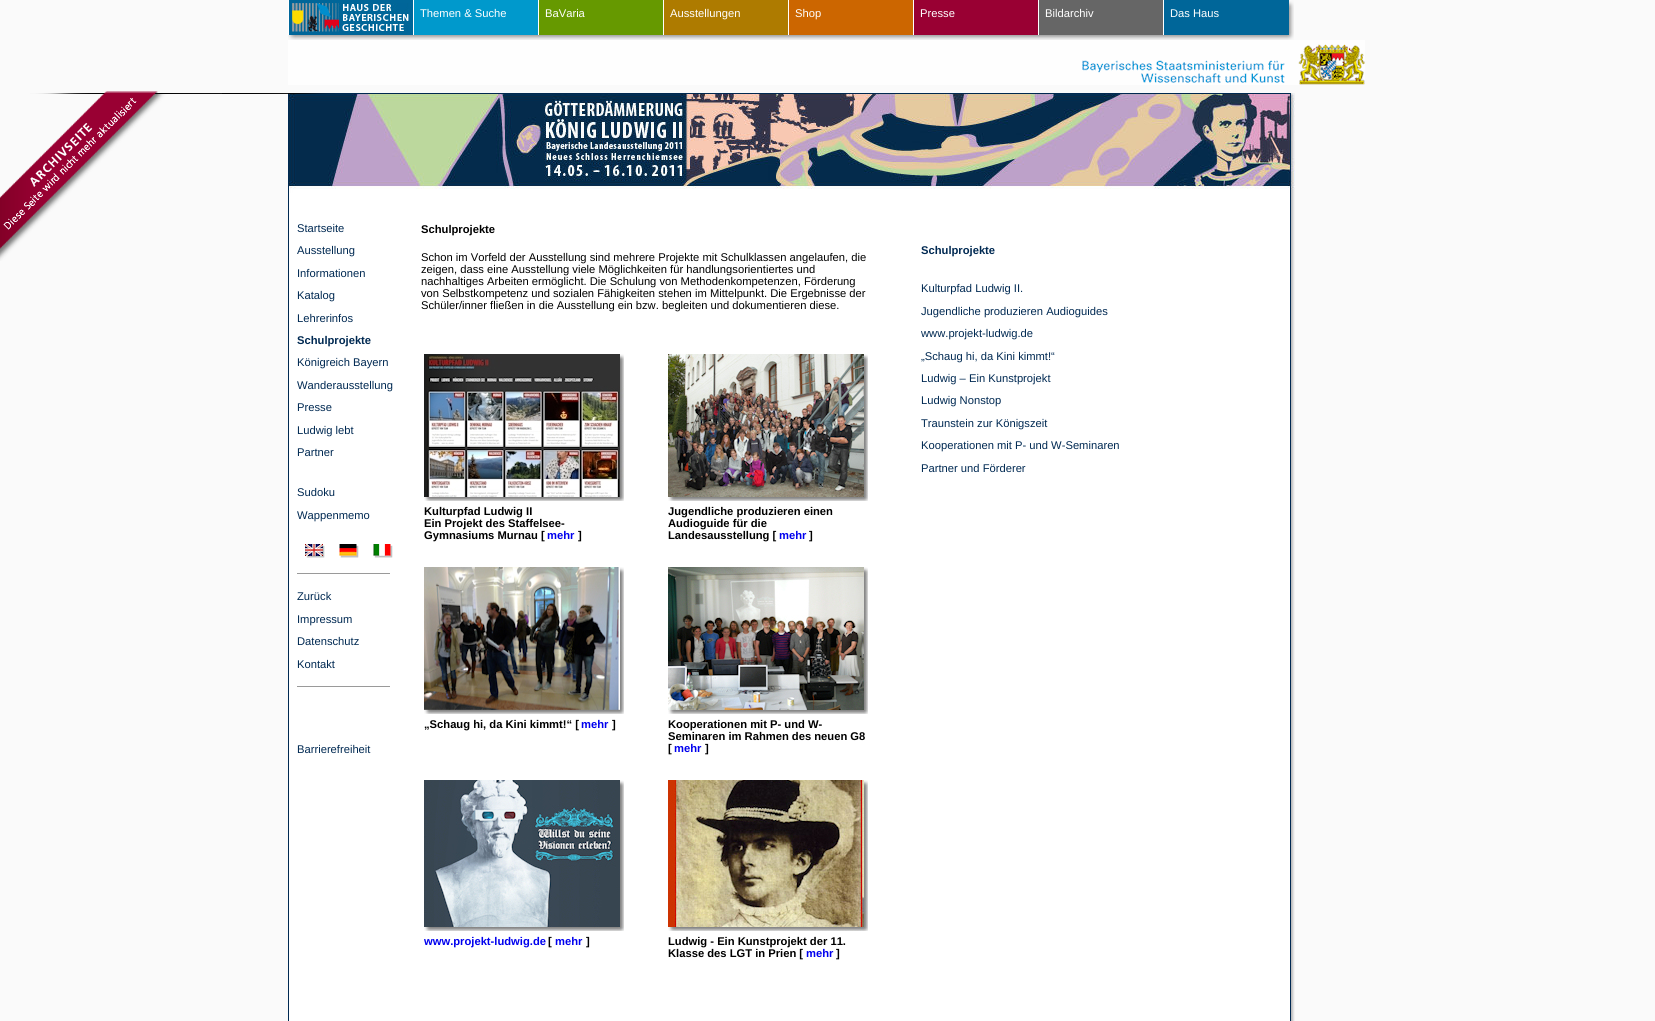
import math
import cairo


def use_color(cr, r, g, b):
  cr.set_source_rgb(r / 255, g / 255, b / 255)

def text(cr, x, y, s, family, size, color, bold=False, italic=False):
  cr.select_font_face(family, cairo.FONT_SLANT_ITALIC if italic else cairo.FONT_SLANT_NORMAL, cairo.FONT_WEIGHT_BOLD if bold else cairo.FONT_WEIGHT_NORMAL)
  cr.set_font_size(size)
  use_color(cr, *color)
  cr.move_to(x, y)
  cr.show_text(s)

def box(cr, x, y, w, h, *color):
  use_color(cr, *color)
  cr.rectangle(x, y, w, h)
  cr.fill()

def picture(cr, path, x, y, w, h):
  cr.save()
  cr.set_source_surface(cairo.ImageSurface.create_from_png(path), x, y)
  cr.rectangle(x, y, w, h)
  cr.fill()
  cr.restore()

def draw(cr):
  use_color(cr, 250, 250, 250)
  cr.paint()
  picture(cr, "img_01.png", 288, 0, 1006, 40)
  box(cr, 289, 0, 124, 35, 0, 102, 153)
  box(cr, 288, 33, 1, 2, 255, 255, 255)
  picture(cr, "img_02.png", 292, 3, 117, 29)
  box(cr, 414, 0, 124, 35, 0, 153, 204)
  box(cr, 413, 33, 1, 2, 255, 255, 255)
  box(cr, 539, 0, 124, 35, 102, 153, 0)
  box(cr, 538, 33, 1, 2, 255, 255, 255)
  box(cr, 664, 0, 124, 35, 174, 123, 0)
  box(cr, 663, 33, 1, 2, 255, 255, 255)
  box(cr, 789, 0, 124, 35, 204, 102, 0)
  box(cr, 788, 33, 1, 2, 255, 255, 255)
  box(cr, 914, 0, 124, 35, 153, 0, 51)
  box(cr, 913, 33, 1, 2, 255, 255, 255)
  box(cr, 1039, 0, 124, 35, 102, 102, 102)
  box(cr, 1038, 33, 1, 2, 255, 255, 255)
  box(cr, 1164, 0, 125, 35, 0, 102, 153)
  box(cr, 1163, 33, 1, 2, 255, 255, 255)
  picture(cr, "img_03.png", 288, 40, 1077, 45)
  picture(cr, "img_05.png", 288, 93, 1007, 100)
  picture(cr, "img_06.png", 288, 193, 1007, 828)
  picture(cr, "img_07.png", 305, 544, 20, 14)
  picture(cr, "img_08.png", 339, 544, 20, 14)
  picture(cr, "img_09.png", 373, 544, 20, 14)
  box(cr, 297, 573, 93, 1, 154, 154, 154)
  box(cr, 297, 686, 93, 1, 154, 154, 154)
  picture(cr, "img_10.png", 424, 354, 200, 147)
  picture(cr, "img_11.png", 668, 354, 200, 147)
  picture(cr, "img_12.png", 424, 567, 200, 147)
  picture(cr, "img_13.png", 668, 567, 200, 147)
  picture(cr, "img_14.png", 424, 780, 200, 151)
  picture(cr, "img_15.png", 668, 780, 200, 151)
  text(cr, 420, 17, "Themen & Suche", "Liberation Sans", 11.2, (255, 255, 255))
  text(cr, 545, 17, "BaVaria", "Liberation Sans", 11.2, (255, 255, 255))
  text(cr, 670, 17, "Ausstellungen", "Liberation Sans", 11.2, (255, 255, 255))
  text(cr, 795, 17, "Shop", "Liberation Sans", 11.2, (255, 255, 255))
  text(cr, 920, 17, "Presse", "Liberation Sans", 11.2, (255, 255, 255))
  text(cr, 1045, 17, "Bildarchiv", "Liberation Sans", 11.2, (255, 255, 255))
  text(cr, 1170, 17, "Das Haus", "Liberation Sans", 11.2, (255, 255, 255))
  text(cr, 297, 232, "Startseite", "Liberation Sans", 11.2, (0, 41, 82))
  text(cr, 297, 254, "Ausstellung", "Liberation Sans", 11.2, (0, 41, 82))
  picture(cr, "img_04.png", 0, 91, 335, 170)
  text(cr, 297, 277, "Informationen", "Liberation Sans", 11.2, (0, 41, 82))
  text(cr, 297, 299, "Katalog", "Liberation Sans", 11.2, (0, 41, 82))
  text(cr, 297, 322, "Lehrerinfos", "Liberation Sans", 11.2, (0, 41, 82))
  text(cr, 297, 344, "Schulprojekte", "Liberation Sans", 11.2, (0, 41, 82), bold=True)
  text(cr, 297, 366, "Königreich Bayern", "Liberation Sans", 11.2, (0, 41, 82))
  text(cr, 297, 389, "Wanderausstellung", "Liberation Sans", 11.2, (0, 41, 82))
  text(cr, 297, 411, "Presse", "Liberation Sans", 11.2, (0, 41, 82))
  text(cr, 297, 434, "Ludwig lebt", "Liberation Sans", 11.2, (0, 41, 82))
  text(cr, 297, 456, "Partner", "Liberation Sans", 11.2, (0, 41, 82))
  text(cr, 297, 496, "Sudoku", "Liberation Sans", 11.2, (0, 41, 82))
  text(cr, 297, 519, "Wappenmemo", "Liberation Sans", 11.2, (0, 41, 82))
  text(cr, 297, 600, "Zurück", "Liberation Sans", 11.2, (0, 41, 82))
  text(cr, 297, 623, "Impressum", "Liberation Sans", 11.2, (0, 41, 82))
  text(cr, 297, 645, "Datenschutz", "Liberation Sans", 11.2, (0, 41, 82))
  text(cr, 297, 668, "Kontakt", "Liberation Sans", 11.2, (0, 41, 82))
  text(cr, 297, 753, "Barrierefreiheit", "Liberation Sans", 11.2, (0, 41, 82))
  text(cr, 421, 233, "Schulprojekte", "Liberation Sans", 11.2, (0, 0, 0), bold=True)
  text(cr, 421, 261, "Schon im Vorfeld der Ausstellung sind mehrere Projekte mit Schulklassen angelaufen, die", "Liberation Sans", 11.2, (0, 0, 0))
  text(cr, 421, 273, "zeigen, dass eine Ausstellung viele Möglichkeiten für handlungsorientiertes und", "Liberation Sans", 11.2, (0, 0, 0))
  text(cr, 421, 285, "nachhaltiges Arbeiten ermöglicht. Die Schulung von Methodenkompetenzen, Förderung", "Liberation Sans", 11.2, (0, 0, 0))
  text(cr, 421, 297, "von Selbstkompetenz und sozialen Fähigkeiten stehen im Mittelpunkt. Die Ergebnisse der", "Liberation Sans", 11.2, (0, 0, 0))
  text(cr, 421, 309, "Schüler/inner fließen in die Ausstellung ein bzw. begleiten und dokumentieren diese.", "Liberation Sans", 11.2, (0, 0, 0))
  text(cr, 424, 515, "Kulturpfad Ludwig II", "Liberation Sans", 11.2, (0, 0, 0), bold=True)
  text(cr, 424, 527, "Ein Projekt des Staffelsee-", "Liberation Sans", 11.2, (0, 0, 0), bold=True)
  text(cr, 424, 539, "Gymnasiums Murnau [", "Liberation Sans", 11.2, (0, 0, 0), bold=True)
  text(cr, 547, 539, "mehr", "Liberation Sans", 11.2, (0, 0, 238), bold=True)
  text(cr, 578, 539, "]", "Liberation Sans", 11.2, (0, 0, 0), bold=True)
  text(cr, 668, 515, "Jugendliche produzieren einen", "Liberation Sans", 11.2, (0, 0, 0), bold=True)
  text(cr, 668, 527, "Audioguide für die", "Liberation Sans", 11.2, (0, 0, 0), bold=True)
  text(cr, 668, 539, "Landesausstellung [", "Liberation Sans", 11.2, (0, 0, 0), bold=True)
  text(cr, 779, 539, "mehr", "Liberation Sans", 11.2, (0, 0, 238), bold=True)
  text(cr, 809, 539, "]", "Liberation Sans", 11.2, (0, 0, 0), bold=True)
  text(cr, 424, 728, "„Schaug hi, da Kini kimmt!“ [", "Liberation Sans", 11.2, (0, 0, 0), bold=True)
  text(cr, 581, 728, "mehr", "Liberation Sans", 11.2, (0, 0, 238), bold=True)
  text(cr, 612, 728, "]", "Liberation Sans", 11.2, (0, 0, 0), bold=True)
  text(cr, 668, 728, "Kooperationen mit P- und W-", "Liberation Sans", 11.2, (0, 0, 0), bold=True)
  text(cr, 668, 740, "Seminaren im Rahmen des neuen G8", "Liberation Sans", 11.2, (0, 0, 0), bold=True)
  text(cr, 668, 752, "[", "Liberation Sans", 11.2, (0, 0, 0), bold=True)
  text(cr, 674, 752, "mehr", "Liberation Sans", 11.2, (0, 0, 238), bold=True)
  text(cr, 705, 752, "]", "Liberation Sans", 11.2, (0, 0, 0), bold=True)
  text(cr, 424, 945, "www.projekt-ludwig.de", "Liberation Sans", 11.2, (0, 0, 238), bold=True)
  text(cr, 548, 945, "[", "Liberation Sans", 11.2, (0, 0, 0), bold=True)
  text(cr, 555, 945, "mehr", "Liberation Sans", 11.2, (0, 0, 238), bold=True)
  text(cr, 586, 945, "]", "Liberation Sans", 11.2, (0, 0, 0), bold=True)
  text(cr, 668, 945, "Ludwig - Ein Kunstprojekt der 11.", "Liberation Sans", 11.2, (0, 0, 0), bold=True)
  text(cr, 668, 957, "Klasse des LGT in Prien [", "Liberation Sans", 11.2, (0, 0, 0), bold=True)
  text(cr, 806, 957, "mehr", "Liberation Sans", 11.2, (0, 0, 238), bold=True)
  text(cr, 836, 957, "]", "Liberation Sans", 11.2, (0, 0, 0), bold=True)
  text(cr, 921, 254, "Schulprojekte", "Liberation Sans", 11.2, (0, 41, 82), bold=True)
  text(cr, 921, 292, "Kulturpfad Ludwig II.", "Liberation Sans", 11.2, (0, 41, 82))
  text(cr, 921, 315, "Jugendliche produzieren Audioguides", "Liberation Sans", 11.2, (0, 41, 82))
  text(cr, 921, 337, "www.projekt-ludwig.de", "Liberation Sans", 11.2, (0, 41, 82))
  text(cr, 921, 360, "„Schaug hi, da Kini kimmt!“", "Liberation Sans", 11.2, (0, 41, 82))
  text(cr, 921, 382, "Ludwig – Ein Kunstprojekt", "Liberation Sans", 11.2, (0, 41, 82))
  text(cr, 921, 404, "Ludwig Nonstop", "Liberation Sans", 11.2, (0, 41, 82))
  text(cr, 921, 427, "Traunstein zur Königszeit", "Liberation Sans", 11.2, (0, 41, 82))
  text(cr, 921, 449, "Kooperationen mit P- und W-Seminaren", "Liberation Sans", 11.2, (0, 41, 82))
  text(cr, 921, 472, "Partner und Förderer", "Liberation Sans", 11.2, (0, 41, 82))


surface = cairo.ImageSurface(cairo.FORMAT_RGB24, 1655, 1021)
cr = cairo.Context(surface)
options = cairo.FontOptions()
options.set_hint_metrics(cairo.HINT_METRICS_OFF)
options.set_hint_style(cairo.HINT_STYLE_NONE)
cr.set_font_options(options)
cr.set_miter_limit(4)
draw(cr)
surface.write_to_png("out.png")
